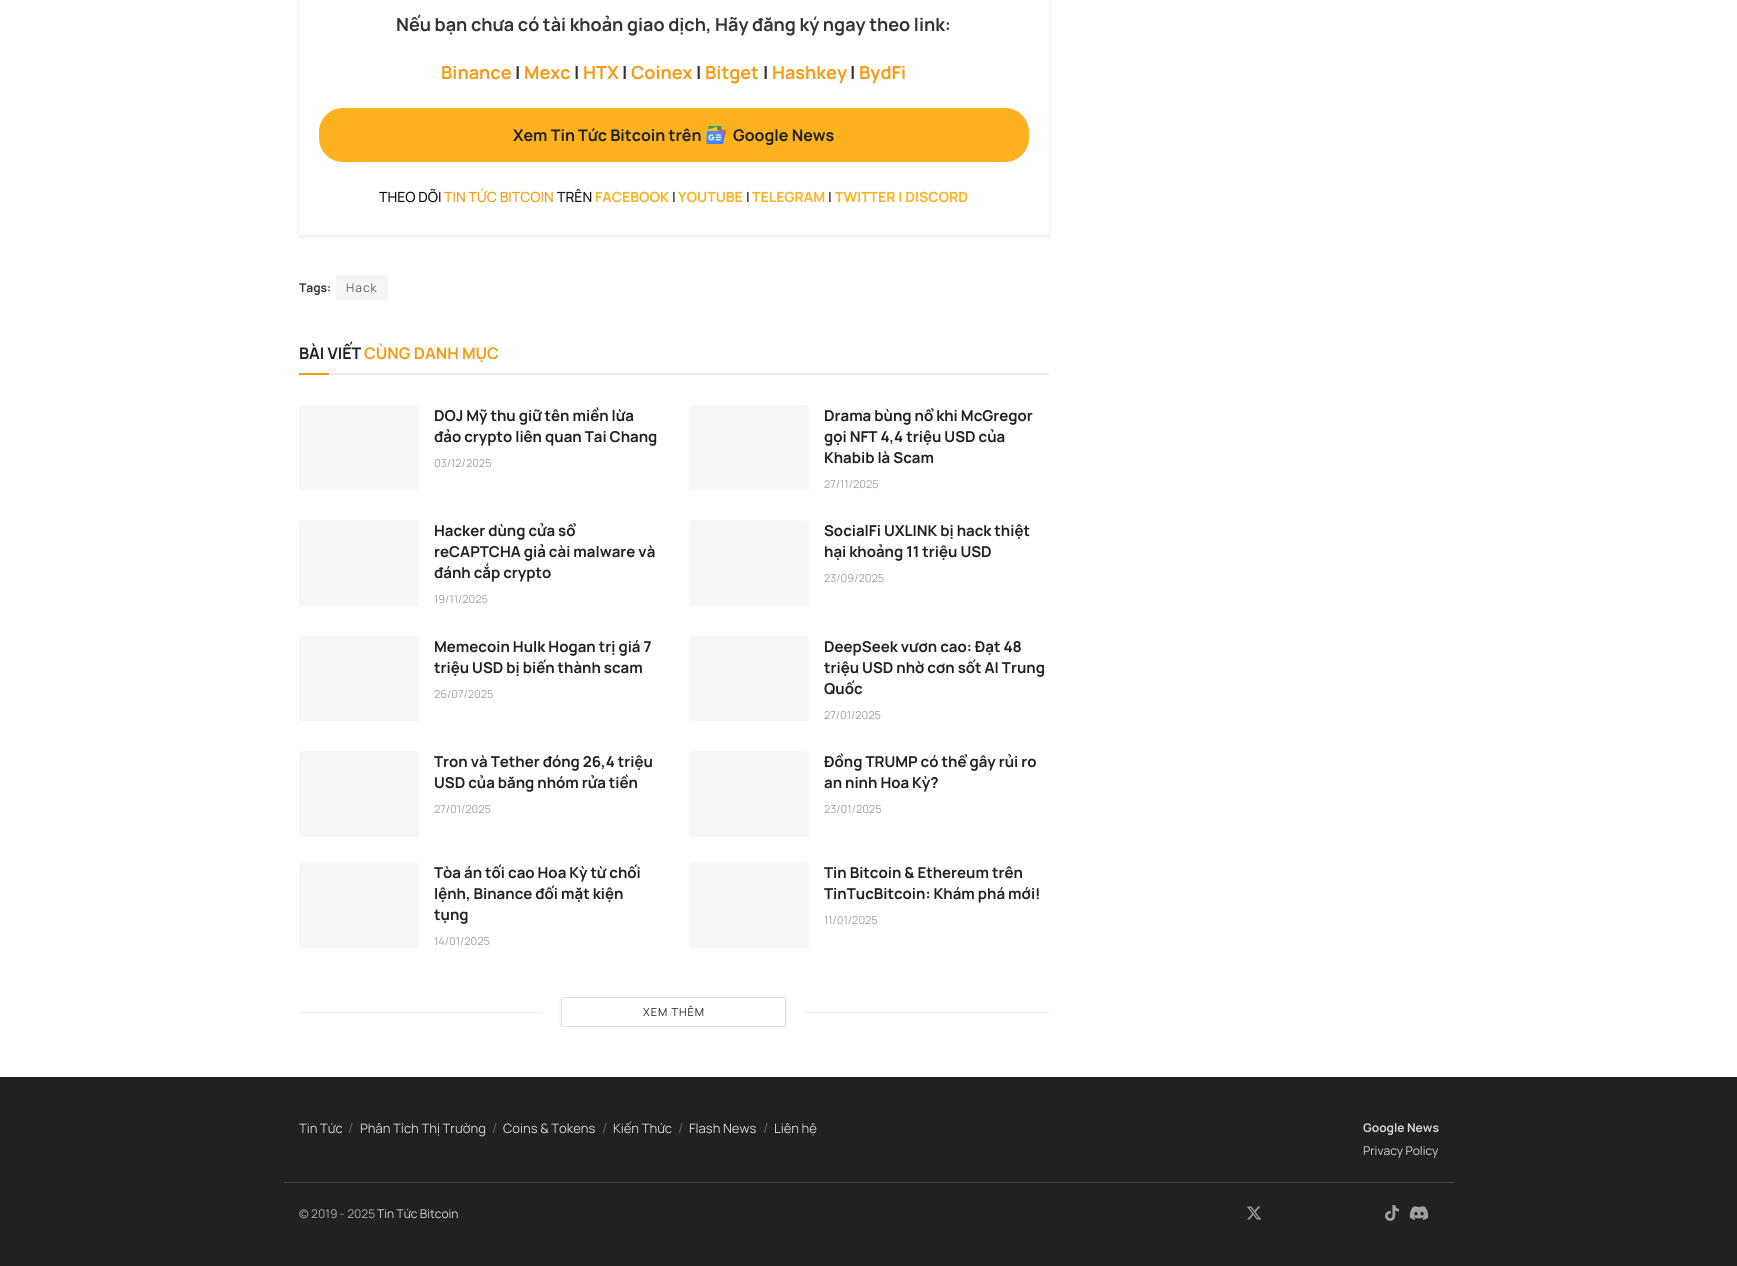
import math
import cairo


def use_color(cr, r, g, b):
  cr.set_source_rgb(r / 255, g / 255, b / 255)

def text(cr, x, y, s, family, size, color, bold=False, italic=False):
  cr.select_font_face(family, cairo.FONT_SLANT_ITALIC if italic else cairo.FONT_SLANT_NORMAL, cairo.FONT_WEIGHT_BOLD if bold else cairo.FONT_WEIGHT_NORMAL)
  cr.set_font_size(size)
  use_color(cr, *color)
  cr.move_to(x, y)
  cr.show_text(s)

def spaced_text(cr, x, y, s, letter, word):
  cr.move_to(x, y)
  for ch in s:
    cr.show_text(ch)
    cr.rel_move_to(letter + word * (ch == ' '), 0)

def box(cr, x, y, w, h, *color):
  use_color(cr, *color)
  cr.rectangle(x, y, w, h)
  cr.fill()

def round_rect(cr, x, y, w, h, r):
  cr.new_sub_path()
  for i, (u, v) in enumerate([(x + w - r, y + h - r), (x + r, y + h - r), (x + r, y + r), (x + w - r, y + r)]):
    cr.arc(u, v, r, i * math.pi / 2, (i + 1) * math.pi / 2)
  cr.close_path()

def shadow(cr, x, y, w, h, r, blur, alpha):
  cr.push_group_with_content(cairo.CONTENT_ALPHA)
  cr.set_operator(cairo.OPERATOR_SOURCE)
  for i in range(15, -16, -2):
    e = blur * i / 6
    if min(w, h) + 2 * e > 0:
      cr.set_source_rgba(0, 0, 0, alpha * math.erfc((i - 1) / 8.5) / 2)
      round_rect(cr, x - e, y - e, w + 2 * e, h + 2 * e, max(0, min(r + e + blur * .6, min(w, h) / 2 + e)))
      cr.fill()
  cr.mask(cr.pop_group())

def picture(cr, path, x, y, w, h):
  cr.save()
  cr.set_source_surface(cairo.ImageSurface.create_from_png(path), x, y)
  cr.rectangle(x, y, w, h)
  cr.fill()
  cr.restore()

def draw(cr):
  use_color(cr, 255, 255, 255)
  cr.paint()
  cr.save()
  cr.set_fill_rule(cairo.FILL_RULE_EVEN_ODD)
  cr.new_path()
  cr.move_to(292, 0)
  cr.line_to(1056, 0)
  cr.line_to(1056, 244)
  cr.line_to(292, 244)
  cr.close_path()
  cr.move_to(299, -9)
  cr.line_to(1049, -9)
  cr.line_to(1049, 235)
  cr.line_to(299, 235)
  cr.close_path()
  cr.clip()
  use_color(cr, 0, 0, 0)
  shadow(cr, 299, -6, 750, 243, 0, 2, 0.08)
  cr.restore()
  use_color(cr, 252, 177, 30)
  round_rect(cr, 319, 108, 710, 54, 24)
  cr.fill()
  picture(cr, "img_01.png", 704, 126, 22, 18)
  box(cr, 336, 275, 52, 25, 245, 245, 245)
  box(cr, 329, 373, 720, 2, 238, 238, 238)
  box(cr, 299, 373, 30, 2, 243, 156, 18)
  use_color(cr, 247, 247, 247)
  cr.new_path()
  cr.move_to(304, 405)
  cr.line_to(414, 405)
  cr.curve_to(417, 405, 419, 407, 419, 410)
  cr.line_to(419, 490)
  cr.line_to(299, 490)
  cr.line_to(299, 410)
  cr.curve_to(299, 407, 301, 405, 304, 405)
  cr.close_path()
  cr.fill()
  cr.new_path()
  cr.move_to(694, 405)
  cr.line_to(804, 405)
  cr.curve_to(807, 405, 809, 407, 809, 410)
  cr.line_to(809, 490)
  cr.line_to(689, 490)
  cr.line_to(689, 410)
  cr.curve_to(689, 407, 691, 405, 694, 405)
  cr.close_path()
  cr.fill()
  cr.new_path()
  cr.move_to(304, 520)
  cr.line_to(414, 520)
  cr.curve_to(417, 520, 419, 522, 419, 525)
  cr.line_to(419, 606)
  cr.line_to(299, 606)
  cr.line_to(299, 525)
  cr.curve_to(299, 522, 301, 520, 304, 520)
  cr.close_path()
  cr.fill()
  cr.new_path()
  cr.move_to(694, 520)
  cr.line_to(804, 520)
  cr.curve_to(807, 520, 809, 522, 809, 525)
  cr.line_to(809, 606)
  cr.line_to(689, 606)
  cr.line_to(689, 525)
  cr.curve_to(689, 522, 691, 520, 694, 520)
  cr.close_path()
  cr.fill()
  cr.new_path()
  cr.move_to(304, 636)
  cr.line_to(414, 636)
  cr.curve_to(417, 636, 419, 638, 419, 641)
  cr.line_to(419, 721)
  cr.line_to(299, 721)
  cr.line_to(299, 641)
  cr.curve_to(299, 638, 301, 636, 304, 636)
  cr.close_path()
  cr.fill()
  cr.new_path()
  cr.move_to(694, 636)
  cr.line_to(804, 636)
  cr.curve_to(807, 636, 809, 638, 809, 641)
  cr.line_to(809, 721)
  cr.line_to(689, 721)
  cr.line_to(689, 641)
  cr.curve_to(689, 638, 691, 636, 694, 636)
  cr.close_path()
  cr.fill()
  cr.new_path()
  cr.move_to(304, 751)
  cr.line_to(414, 751)
  cr.curve_to(417, 751, 419, 753, 419, 756)
  cr.line_to(419, 837)
  cr.line_to(299, 837)
  cr.line_to(299, 756)
  cr.curve_to(299, 753, 301, 751, 304, 751)
  cr.close_path()
  cr.fill()
  cr.new_path()
  cr.move_to(694, 751)
  cr.line_to(804, 751)
  cr.curve_to(807, 751, 809, 753, 809, 756)
  cr.line_to(809, 837)
  cr.line_to(689, 837)
  cr.line_to(689, 756)
  cr.curve_to(689, 753, 691, 751, 694, 751)
  cr.close_path()
  cr.fill()
  cr.new_path()
  cr.move_to(304, 862)
  cr.line_to(414, 862)
  cr.curve_to(417, 862, 419, 864, 419, 867)
  cr.line_to(419, 948)
  cr.line_to(299, 948)
  cr.line_to(299, 867)
  cr.curve_to(299, 864, 301, 862, 304, 862)
  cr.close_path()
  cr.fill()
  cr.new_path()
  cr.move_to(694, 862)
  cr.line_to(804, 862)
  cr.curve_to(807, 862, 809, 864, 809, 867)
  cr.line_to(809, 948)
  cr.line_to(689, 948)
  cr.line_to(689, 867)
  cr.curve_to(689, 864, 691, 862, 694, 862)
  cr.close_path()
  cr.fill()
  cr.save()
  cr.rectangle(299, 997, 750, 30)
  cr.clip()
  use_color(cr, 0, 0, 0)
  shadow(cr, 561, 998, 225, 30, 2, 1.5, 0.1)
  cr.restore()
  use_color(cr, 255, 255, 255)
  round_rect(cr, 561.5, 997.5, 224, 29, 1.5)
  cr.fill_preserve()
  use_color(cr, 224, 224, 224)
  cr.set_line_width(1)
  cr.stroke()
  box(cr, 299, 1012, 243, 1, 238, 238, 238)
  box(cr, 805, 1012, 244, 1, 238, 238, 238)
  box(cr, 0, 1077, 1737, 189, 33, 33, 33)
  box(cr, 284, 1182, 1170, 1, 66, 66, 66)
  picture(cr, "img_02.png", 1247, 1206, 15, 14)
  picture(cr, "img_03.png", 1385, 1205, 14, 16)
  picture(cr, "img_04.png", 1409, 1206, 20, 14)
  text(cr, 396, 31, "Nếu bạn chưa có tài khoản giao dịch, Hãy đăng ký ngay theo link:", "Manrope", 18, (51, 51, 51), bold=True)
  text(cr, 441, 79, "Binance", "Manrope", 18, (243, 156, 18), bold=True)
  text(cr, 515, 79, "|", "Manrope", 18, (51, 51, 51), bold=True)
  text(cr, 524, 79, "Mexc", "Manrope", 18, (243, 156, 18), bold=True)
  text(cr, 574, 79, "|", "Manrope", 18, (51, 51, 51), bold=True)
  text(cr, 583, 79, "HTX", "Manrope", 18, (243, 156, 18), bold=True)
  text(cr, 622, 79, "|", "Manrope", 18, (51, 51, 51), bold=True)
  text(cr, 631, 79, "Coinex", "Manrope", 18, (243, 156, 18), bold=True)
  text(cr, 696, 79, "|", "Manrope", 18, (51, 51, 51), bold=True)
  text(cr, 705, 79, "Bitget", "Manrope", 18, (243, 156, 18), bold=True)
  text(cr, 763, 79, "|", "Manrope", 18, (51, 51, 51), bold=True)
  text(cr, 772, 79, "Hashkey", "Manrope", 18, (243, 156, 18), bold=True)
  text(cr, 850, 79, "|", "Manrope", 18, (51, 51, 51), bold=True)
  text(cr, 859, 79, "BydFi", "Manrope", 18, (243, 156, 18), bold=True)
  text(cr, 513, 141, "Xem Tin Tức Bitcoin trên", "Manrope", 16, (33, 33, 33), bold=True)
  text(cr, 733, 141, "Google News", "Manrope", 16, (33, 33, 33), bold=True)
  text(cr, 379, 202, "THEO DÕI", "Manrope Medium", 14, (17, 17, 17))
  text(cr, 444, 202, "TIN TỨC BITCOIN", "Manrope Medium", 14, (243, 156, 18))
  text(cr, 557, 202, "TRÊN", "Manrope Medium", 14, (17, 17, 17))
  text(cr, 595, 202, "FACEBOOK", "Manrope", 14, (252, 177, 30), bold=True)
  text(cr, 672, 202, "|", "Manrope Medium", 14, (17, 17, 17))
  text(cr, 678, 202, "YOUTUBE", "Manrope", 14, (252, 177, 30), bold=True)
  text(cr, 746, 202, "|", "Manrope Medium", 14, (17, 17, 17))
  text(cr, 752, 202, "TELEGRAM", "Manrope", 14, (252, 177, 30), bold=True)
  text(cr, 828, 202, "|", "Manrope Medium", 14, (17, 17, 17))
  text(cr, 835, 202, "TWITTER | DISCORD", "Manrope", 14, (252, 177, 30), bold=True)
  text(cr, 299, 292, "Tags:", "Manrope", 12, (51, 51, 51), bold=True)
  cr.select_font_face("Manrope")
  use_color(cr, 97, 97, 97)
  spaced_text(cr, 346, 292, "Hack", 1, 0)
  text(cr, 299, 359, "BÀI VIẾT", "Manrope", 16, (33, 33, 33), bold=True)
  text(cr, 364, 359, "CÙNG DANH MỤC", "Manrope", 16, (243, 156, 18), bold=True)
  text(cr, 434, 421, "DOJ Mỹ thu giữ tên miền lừa", "Manrope", 15, (33, 33, 33), bold=True)
  text(cr, 434, 442, "đảo crypto liên quan Tai Chang", "Manrope", 15, (33, 33, 33), bold=True)
  text(cr, 434, 467, "03/12/2025", "Manrope", 11, (160, 160, 160))
  text(cr, 824, 421, "Drama bùng nổ khi McGregor", "Manrope", 15, (33, 33, 33), bold=True)
  text(cr, 824, 442, "gọi NFT 4,4 triệu USD của", "Manrope", 15, (33, 33, 33), bold=True)
  text(cr, 824, 463, "Khabib là Scam", "Manrope", 15, (33, 33, 33), bold=True)
  text(cr, 824, 488, "27/11/2025", "Manrope", 11, (160, 160, 160))
  text(cr, 434, 536, "Hacker dùng cửa sổ", "Manrope", 15, (33, 33, 33), bold=True)
  text(cr, 434, 557, "reCAPTCHA giả cài malware và", "Manrope", 15, (33, 33, 33), bold=True)
  text(cr, 434, 578, "đánh cắp crypto", "Manrope", 15, (33, 33, 33), bold=True)
  text(cr, 434, 603, "19/11/2025", "Manrope", 11, (160, 160, 160))
  text(cr, 824, 536, "SocialFi UXLINK bị hack thiệt", "Manrope", 15, (33, 33, 33), bold=True)
  text(cr, 824, 557, "hại khoảng 11 triệu USD", "Manrope", 15, (33, 33, 33), bold=True)
  text(cr, 824, 582, "23/09/2025", "Manrope", 11, (160, 160, 160))
  text(cr, 434, 652, "Memecoin Hulk Hogan trị giá 7", "Manrope", 15, (33, 33, 33), bold=True)
  text(cr, 434, 673, "triệu USD bị biến thành scam", "Manrope", 15, (33, 33, 33), bold=True)
  text(cr, 434, 698, "26/07/2025", "Manrope", 11, (160, 160, 160))
  text(cr, 824, 652, "DeepSeek vươn cao: Đạt 48", "Manrope", 15, (33, 33, 33), bold=True)
  text(cr, 824, 673, "triệu USD nhờ cơn sốt AI Trung", "Manrope", 15, (33, 33, 33), bold=True)
  text(cr, 824, 694, "Quốc", "Manrope", 15, (33, 33, 33), bold=True)
  text(cr, 824, 719, "27/01/2025", "Manrope", 11, (160, 160, 160))
  text(cr, 434, 767, "Tron và Tether đóng 26,4 triệu", "Manrope", 15, (33, 33, 33), bold=True)
  text(cr, 434, 788, "USD của băng nhóm rửa tiền", "Manrope", 15, (33, 33, 33), bold=True)
  text(cr, 434, 813, "27/01/2025", "Manrope", 11, (160, 160, 160))
  text(cr, 824, 767, "Đồng TRUMP có thể gây rủi ro", "Manrope", 15, (33, 33, 33), bold=True)
  text(cr, 824, 788, "an ninh Hoa Kỳ?", "Manrope", 15, (33, 33, 33), bold=True)
  text(cr, 824, 813, "23/01/2025", "Manrope", 11, (160, 160, 160))
  text(cr, 434, 878, "Tòa án tối cao Hoa Kỳ từ chối", "Manrope", 15, (33, 33, 33), bold=True)
  text(cr, 434, 899, "lệnh, Binance đối mặt kiện", "Manrope", 15, (33, 33, 33), bold=True)
  text(cr, 434, 920, "tụng", "Manrope", 15, (33, 33, 33), bold=True)
  text(cr, 434, 945, "14/01/2025", "Manrope", 11, (160, 160, 160))
  text(cr, 824, 878, "Tin Bitcoin & Ethereum trên", "Manrope", 15, (33, 33, 33), bold=True)
  text(cr, 824, 899, "TinTucBitcoin: Khám phá mới!", "Manrope", 15, (33, 33, 33), bold=True)
  text(cr, 824, 924, "11/01/2025", "Manrope", 11, (160, 160, 160))
  use_color(cr, 33, 33, 33)
  spaced_text(cr, 643, 1016, "XEM THÊM", 1, 0)
  text(cr, 299, 1133, "Tin Tức", "Manrope", 13, (211, 211, 211))
  text(cr, 348, 1133, "/", "Manrope", 14, (97, 97, 97))
  text(cr, 360, 1133, "Phân Tích Thị Trường", "Manrope", 13, (211, 211, 211))
  text(cr, 492, 1133, "/", "Manrope", 14, (97, 97, 97))
  text(cr, 503, 1133, "Coins & Tokens", "Manrope", 13, (211, 211, 211))
  text(cr, 602, 1133, "/", "Manrope", 14, (97, 97, 97))
  text(cr, 613, 1133, "Kiến Thức", "Manrope", 13, (211, 211, 211))
  text(cr, 678, 1133, "/", "Manrope", 14, (97, 97, 97))
  text(cr, 689, 1133, "Flash News", "Manrope", 13, (211, 211, 211))
  text(cr, 763, 1133, "/", "Manrope", 14, (97, 97, 97))
  text(cr, 774, 1133, "Liên hệ", "Manrope", 13, (211, 211, 211))
  text(cr, 1363, 1132, "Google News", "Manrope", 12, (211, 211, 211), bold=True)
  text(cr, 1363, 1155, "Privacy Policy", "Manrope", 12, (211, 211, 211))
  text(cr, 299, 1218, "© 2019 - 2025", "Manrope", 12, (168, 168, 170))
  text(cr, 377, 1218, "Tin Tức Bitcoin", "Manrope", 12, (211, 211, 211))


surface = cairo.ImageSurface(cairo.FORMAT_RGB24, 1737, 1266)
cr = cairo.Context(surface)
options = cairo.FontOptions()
options.set_hint_metrics(cairo.HINT_METRICS_OFF)
options.set_hint_style(cairo.HINT_STYLE_NONE)
cr.set_font_options(options)
cr.set_miter_limit(4)
draw(cr)
surface.write_to_png("out.png")
